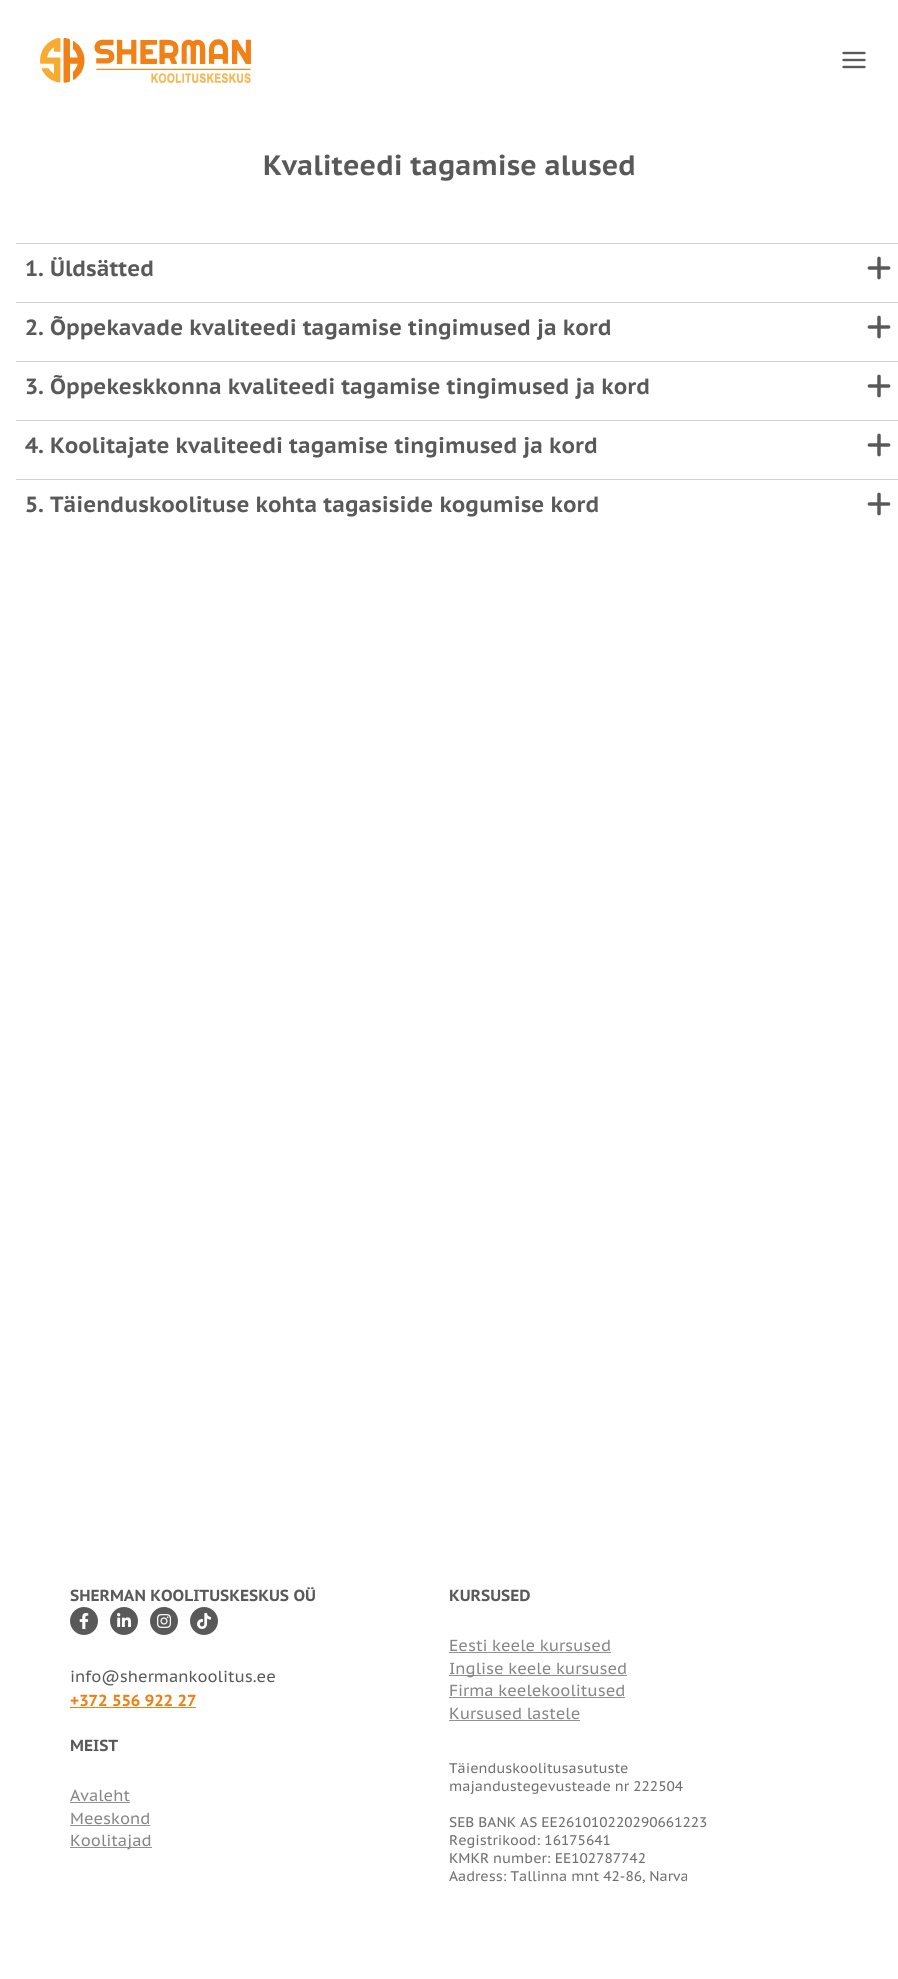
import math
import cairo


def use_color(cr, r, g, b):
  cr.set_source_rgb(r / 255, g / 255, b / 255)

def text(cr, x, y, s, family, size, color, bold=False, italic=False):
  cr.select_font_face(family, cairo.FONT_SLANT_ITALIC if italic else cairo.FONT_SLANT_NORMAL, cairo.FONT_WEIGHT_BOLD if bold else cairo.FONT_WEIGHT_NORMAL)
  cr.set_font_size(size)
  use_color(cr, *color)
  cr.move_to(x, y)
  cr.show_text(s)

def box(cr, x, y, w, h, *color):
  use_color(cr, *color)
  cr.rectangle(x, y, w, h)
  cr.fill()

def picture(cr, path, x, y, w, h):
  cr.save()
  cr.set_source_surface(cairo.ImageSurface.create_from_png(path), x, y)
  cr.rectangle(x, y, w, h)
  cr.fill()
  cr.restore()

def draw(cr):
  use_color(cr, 255, 255, 255)
  cr.paint()
  picture(cr, "img_01.png", 40, 38, 211, 45)
  picture(cr, "img_02.png", 842, 51, 24, 18)
  box(cr, 16, 243, 882, 1, 210, 210, 210)
  picture(cr, "img_03.png", 867, 256, 24, 24)
  box(cr, 16, 302, 882, 1, 210, 210, 210)
  picture(cr, "img_03.png", 867, 315, 24, 24)
  box(cr, 16, 361, 882, 1, 210, 210, 210)
  picture(cr, "img_03.png", 867, 374, 24, 24)
  box(cr, 16, 420, 882, 1, 210, 210, 210)
  picture(cr, "img_03.png", 867, 433, 24, 24)
  box(cr, 16, 479, 882, 1, 210, 210, 210)
  picture(cr, "img_03.png", 867, 492, 24, 24)
  use_color(cr, 89, 89, 89)
  cr.arc(84, 1621, 14, 0, 2 * math.pi)
  cr.fill()
  picture(cr, "img_04.png", 79, 1613, 10, 16)
  cr.arc(124, 1621, 14, 0, 2 * math.pi)
  cr.fill()
  picture(cr, "img_05.png", 117, 1613, 14, 14)
  cr.arc(164, 1621, 14, 0, 2 * math.pi)
  cr.fill()
  picture(cr, "img_06.png", 157, 1614, 14, 14)
  cr.arc(204, 1621, 14, 0, 2 * math.pi)
  cr.fill()
  picture(cr, "img_07.png", 197, 1613, 14, 16)
  box(cr, 70, 1707, 126, 1, 240, 126, 16)
  box(cr, 449, 1652, 162, 1, 145, 145, 145)
  box(cr, 449, 1675, 178, 1, 145, 145, 145)
  box(cr, 449, 1697, 176, 1, 145, 145, 145)
  box(cr, 449, 1720, 131, 1, 145, 145, 145)
  box(cr, 70, 1802, 60, 1, 145, 145, 145)
  box(cr, 70, 1825, 80, 1, 145, 145, 145)
  box(cr, 70, 1847, 82, 1, 145, 145, 145)
  text(cr, 263, 175, "Kvaliteedi tagamise alused", "PT Sans Caption", 28, (89, 89, 89), bold=True)
  text(cr, 25, 276, "1. Üldsätted", "PT Sans Caption", 22, (89, 89, 89), bold=True)
  text(cr, 25, 335, "2. Õppekavade kvaliteedi tagamise tingimused ja kord", "PT Sans Caption", 22, (89, 89, 89), bold=True)
  text(cr, 25, 394, "3. Õppekeskkonna kvaliteedi tagamise tingimused ja kord", "PT Sans Caption", 22, (89, 89, 89), bold=True)
  text(cr, 25, 453, "4. Koolitajate kvaliteedi tagamise tingimused ja kord", "PT Sans Caption", 22, (89, 89, 89), bold=True)
  text(cr, 25, 512, "5. Täienduskoolituse kohta tagasiside kogumise kord", "PT Sans Caption", 22, (89, 89, 89), bold=True)
  text(cr, 70, 1601, "SHERMAN KOOLITUSKESKUS OÜ", "PT Sans Caption", 16, (89, 89, 89), bold=True)
  text(cr, 70, 1682, "info@shermankoolitus.ee", "PT Sans Caption", 16, (89, 89, 89))
  text(cr, 70, 1706, "+372 556 922 27", "PT Sans Caption", 16, (240, 126, 16), bold=True)
  text(cr, 449, 1601, "KURSUSED", "PT Sans Caption", 16, (89, 89, 89), bold=True)
  text(cr, 449, 1651, "Eesti keele kursused", "PT Sans Caption", 16, (135, 135, 135))
  text(cr, 449, 1674, "Inglise keele kursused", "PT Sans Caption", 16, (135, 135, 135))
  text(cr, 449, 1696, "Firma keelekoolitused", "PT Sans Caption", 16, (135, 135, 135))
  text(cr, 449, 1719, "Kursused lastele", "PT Sans Caption", 16, (135, 135, 135))
  text(cr, 70, 1751, "MEIST", "PT Sans Caption", 16, (89, 89, 89), bold=True)
  text(cr, 70, 1801, "Avaleht", "PT Sans Caption", 16, (135, 135, 135))
  text(cr, 70, 1824, "Meeskond", "PT Sans Caption", 16, (135, 135, 135))
  text(cr, 70, 1846, "Koolitajad", "PT Sans Caption", 16, (135, 135, 135))
  text(cr, 449, 1773, "Täienduskoolitusasutuste", "PT Sans Caption", 14, (112, 112, 112))
  text(cr, 449, 1791, "majandustegevusteade nr 222504", "PT Sans Caption", 14, (112, 112, 112))
  text(cr, 449, 1827, "SEB BANK AS EE261010220290661223", "PT Sans Caption", 14, (112, 112, 112))
  text(cr, 449, 1845, "Registrikood: 16175641", "PT Sans Caption", 14, (112, 112, 112))
  text(cr, 449, 1863, "KMKR number: EE102787742", "PT Sans Caption", 14, (112, 112, 112))
  text(cr, 449, 1881, "Aadress: Tallinna mnt 42-86, Narva", "PT Sans Caption", 14, (112, 112, 112))


surface = cairo.ImageSurface(cairo.FORMAT_RGB24, 898, 1979)
cr = cairo.Context(surface)
options = cairo.FontOptions()
options.set_hint_metrics(cairo.HINT_METRICS_OFF)
options.set_hint_style(cairo.HINT_STYLE_NONE)
cr.set_font_options(options)
cr.set_miter_limit(4)
draw(cr)
surface.write_to_png("out.png")
